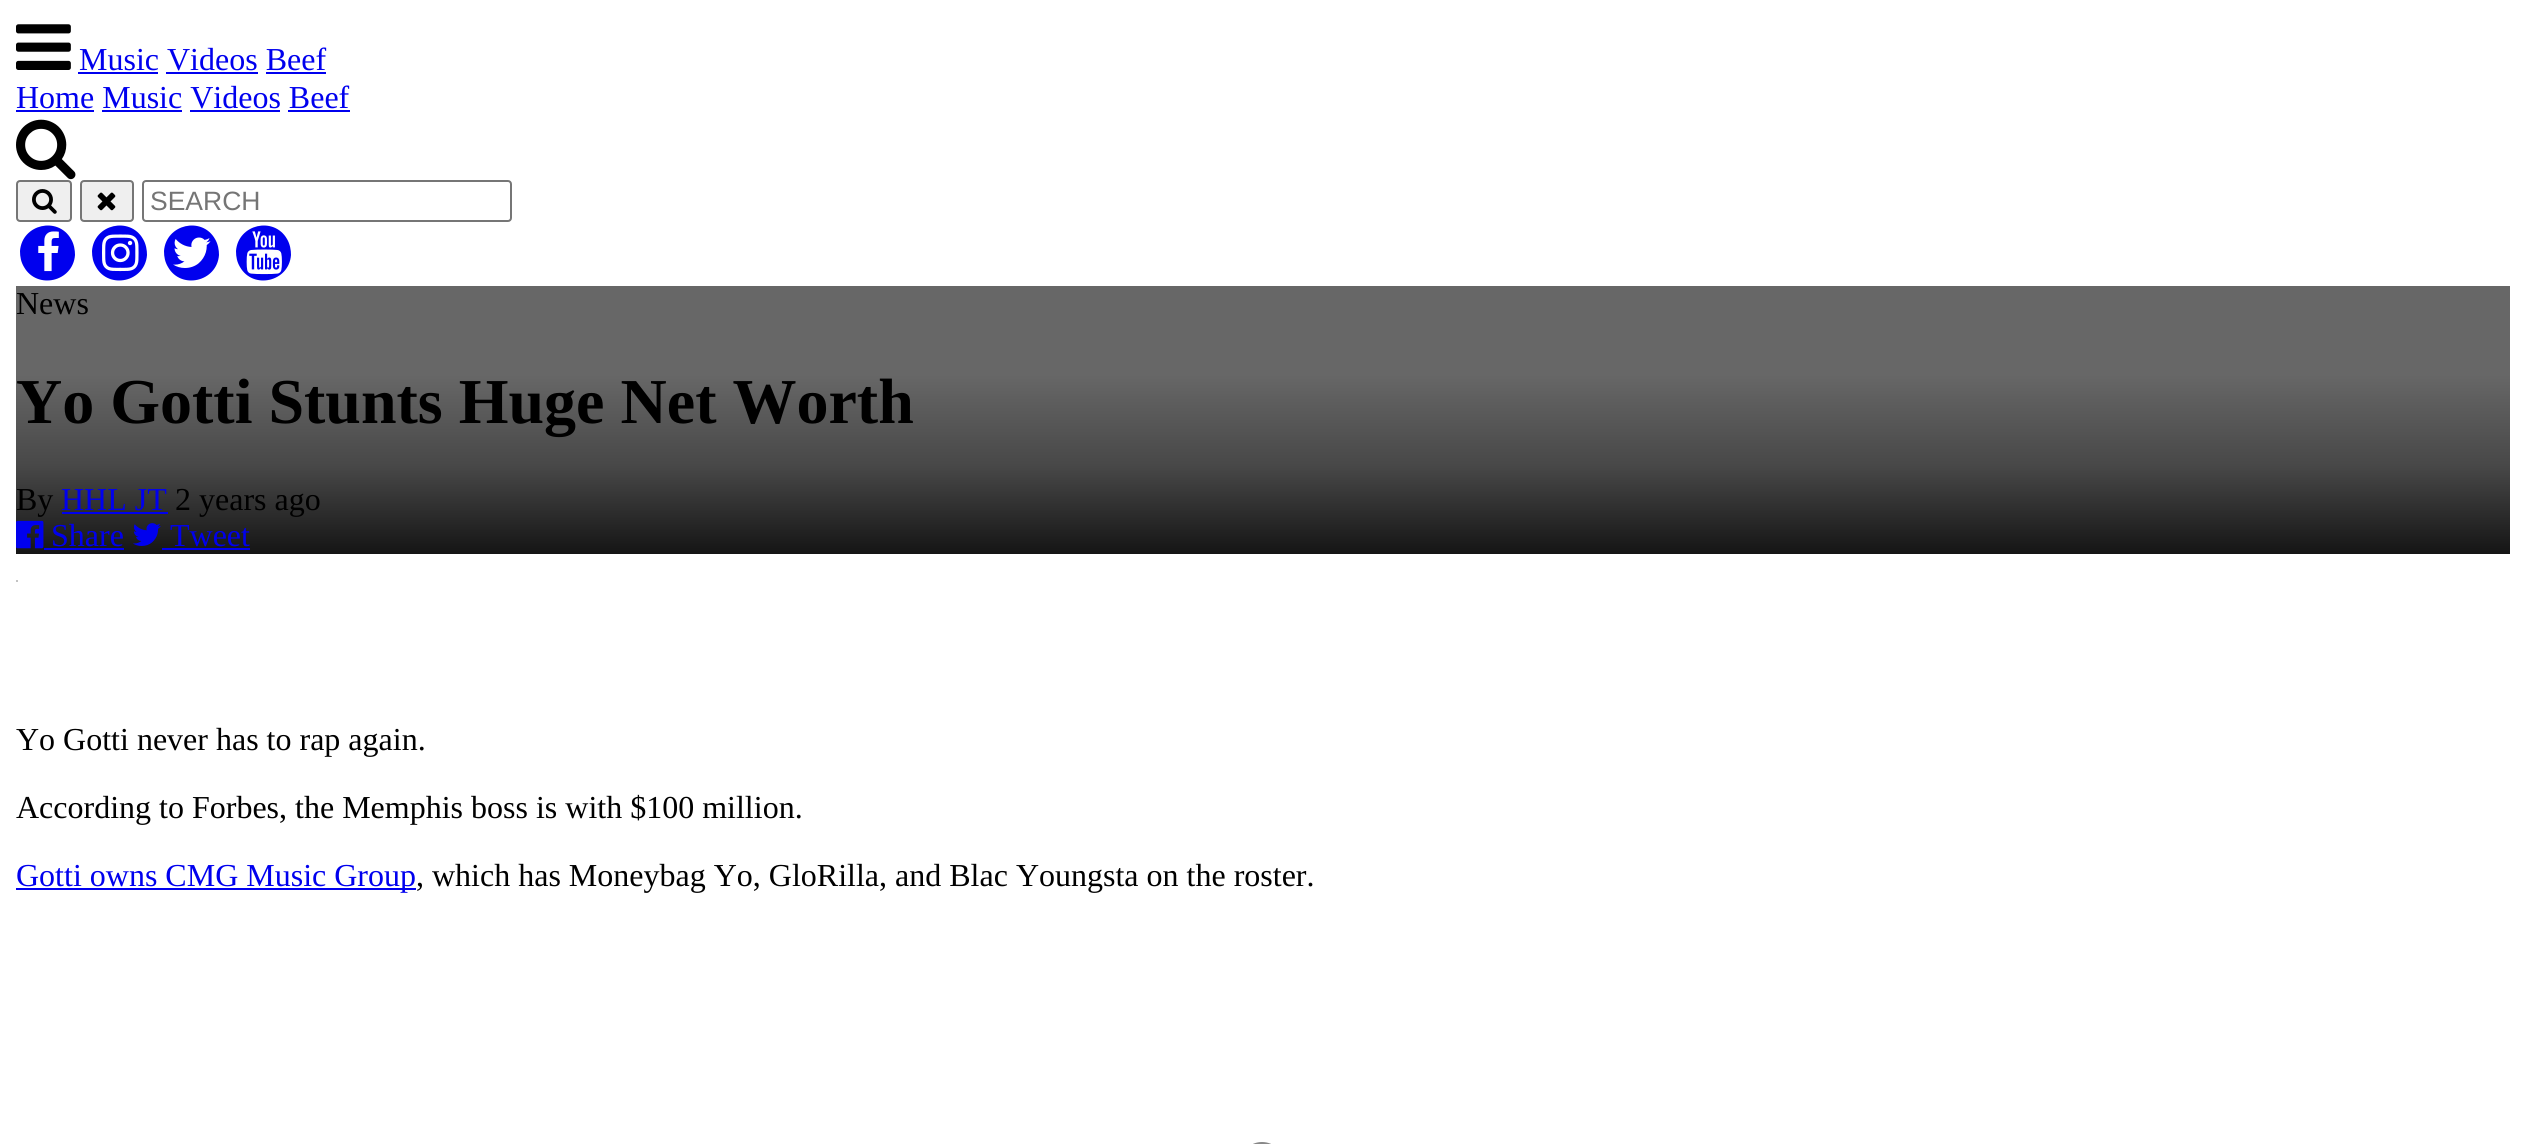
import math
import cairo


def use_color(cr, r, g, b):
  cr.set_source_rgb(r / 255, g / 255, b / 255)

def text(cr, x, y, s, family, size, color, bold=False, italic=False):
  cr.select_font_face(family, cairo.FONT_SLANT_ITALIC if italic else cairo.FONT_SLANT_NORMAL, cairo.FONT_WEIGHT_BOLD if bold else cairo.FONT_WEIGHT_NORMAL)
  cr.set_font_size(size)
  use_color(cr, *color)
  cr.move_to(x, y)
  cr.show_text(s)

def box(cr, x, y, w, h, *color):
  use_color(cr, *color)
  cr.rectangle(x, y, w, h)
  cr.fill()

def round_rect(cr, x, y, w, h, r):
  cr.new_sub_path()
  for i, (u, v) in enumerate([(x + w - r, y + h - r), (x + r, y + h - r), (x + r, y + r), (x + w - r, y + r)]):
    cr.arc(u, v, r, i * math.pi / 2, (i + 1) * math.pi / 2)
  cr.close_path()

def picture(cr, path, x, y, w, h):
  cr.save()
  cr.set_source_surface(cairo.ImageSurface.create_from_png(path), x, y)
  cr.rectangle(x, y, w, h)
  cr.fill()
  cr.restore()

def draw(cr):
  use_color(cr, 255, 255, 255)
  cr.paint()
  picture(cr, "img_01.png", 16, 24, 55, 46)
  box(cr, 78, 72, 80, 2, 0, 0, 238)
  box(cr, 166, 72, 92, 2, 0, 0, 238)
  box(cr, 266, 72, 60, 2, 0, 0, 238)
  box(cr, 16, 110, 78, 2, 0, 0, 238)
  box(cr, 102, 110, 80, 2, 0, 0, 238)
  box(cr, 190, 110, 90, 2, 0, 0, 238)
  box(cr, 288, 110, 62, 2, 0, 0, 238)
  picture(cr, "img_02.png", 16, 119, 60, 61)
  use_color(cr, 239, 239, 239)
  round_rect(cr, 17, 181, 54, 40, 3)
  cr.fill_preserve()
  use_color(cr, 118, 118, 118)
  cr.stroke()
  picture(cr, "img_03.png", 32, 189, 25, 25)
  use_color(cr, 239, 239, 239)
  round_rect(cr, 81, 181, 52, 40, 3)
  cr.fill_preserve()
  use_color(cr, 118, 118, 118)
  cr.stroke()
  picture(cr, "img_04.png", 97, 192, 19, 19)
  round_rect(cr, 143, 181, 368, 40, 3)
  cr.stroke()
  use_color(cr, 0, 0, 238)
  cr.new_path()
  cr.move_to(71, 239)
  cr.curve_to(74, 244, 75, 250, 75, 255)
  cr.curve_to(73, 282, 37, 290, 24, 267)
  cr.curve_to(21, 262, 20, 257, 20, 251)
  cr.curve_to(22, 224, 58, 216, 71, 239)
  cr.close_path()
  cr.fill()
  picture(cr, "img_05.png", 38, 231, 21, 41)
  cr.new_path()
  cr.move_to(143, 239)
  cr.curve_to(146, 244, 147, 250, 147, 255)
  cr.curve_to(145, 282, 109, 290, 96, 267)
  cr.curve_to(93, 262, 92, 257, 92, 251)
  cr.curve_to(94, 224, 130, 216, 143, 239)
  cr.close_path()
  cr.fill()
  picture(cr, "img_06.png", 102, 234, 37, 38)
  cr.new_path()
  cr.move_to(215, 239)
  cr.curve_to(218, 244, 219, 250, 219, 255)
  cr.curve_to(217, 282, 181, 290, 168, 267)
  cr.curve_to(165, 262, 164, 257, 164, 251)
  cr.curve_to(166, 224, 202, 216, 215, 239)
  cr.close_path()
  cr.fill()
  picture(cr, "img_07.png", 173, 237, 38, 31)
  cr.new_path()
  cr.move_to(287, 239)
  cr.curve_to(290, 244, 291, 250, 291, 255)
  cr.curve_to(289, 282, 253, 290, 240, 267)
  cr.curve_to(237, 262, 236, 257, 236, 251)
  cr.curve_to(238, 224, 274, 216, 287, 239)
  cr.close_path()
  cr.fill()
  picture(cr, "img_08.png", 246, 231, 36, 44)
  gradient = cairo.LinearGradient(1263, 286, 1263, 554)
  gradient.add_color_stop_rgba(0, 0.404, 0.404, 0.404, 1)
  gradient.add_color_stop_rgba(0.33, 0.404, 0.404, 0.404, 1)
  gradient.add_color_stop_rgba(0.67, 0.282, 0.282, 0.282, 1)
  gradient.add_color_stop_rgba(1, 0.082, 0.082, 0.082, 1)
  cr.set_source(gradient)
  cr.rectangle(16, 286, 2494, 268)
  cr.fill()
  box(cr, 62, 512, 106, 2, 0, 0, 238)
  picture(cr, "img_09.png", 16, 520, 28, 29)
  box(cr, 44, 548, 80, 2, 0, 0, 238)
  picture(cr, "img_10.png", 133, 523, 28, 23)
  box(cr, 162, 548, 88, 2, 0, 0, 238)
  box(cr, 16, 580, 2, 2, 195, 195, 195)
  box(cr, 16, 888, 400, 2, 0, 0, 238)
  round_rect(cr, 1241, 1143, 42, 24, 21)
  use_color(cr, 249, 249, 249)
  cr.stroke()
  round_rect(cr, 1241, 1143, 42, 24, 21)
  use_color(cr, 136, 136, 136)
  cr.stroke()
  text(cr, 79, 70, "Music Videos Beef", "Liberation Serif", 32, (0, 0, 238))
  text(cr, 16, 108, "Home Music Videos Beef", "Liberation Serif", 32, (0, 0, 238))
  text(cr, 150, 210, "SEARCH", "Liberation Sans", 26.5, (117, 117, 117))
  text(cr, 16, 314, "News", "Liberation Serif", 32, (0, 0, 0))
  text(cr, 16, 423, "Yo Gotti Stunts Huge Net Worth", "Liberation Serif", 64, (0, 0, 0), bold=True)
  text(cr, 16, 510, "By", "Liberation Serif", 32, (0, 0, 0))
  text(cr, 61, 510, "HHL JT", "Liberation Serif", 32, (0, 0, 238))
  text(cr, 175, 510, "2 years ago", "Liberation Serif", 32, (0, 0, 0))
  text(cr, 51, 546, "Share", "Liberation Serif", 32, (0, 0, 238))
  text(cr, 170, 546, "Tweet", "Liberation Serif", 32, (0, 0, 238))
  text(cr, 16, 750, "Yo Gotti never has to rap again.", "Liberation Serif", 32, (0, 0, 0))
  text(cr, 16, 818, "According to Forbes, the Memphis boss is with $100 million.", "Liberation Serif", 32, (0, 0, 0))
  text(cr, 16, 886, "Gotti owns CMG Music Group", "Liberation Serif", 32, (0, 0, 238))
  text(cr, 416, 886, ", which has Moneybag Yo, GloRilla, and Blac Youngsta on the roster.", "Liberation Serif", 32, (0, 0, 0))


surface = cairo.ImageSurface(cairo.FORMAT_RGB24, 2526, 1144)
cr = cairo.Context(surface)
options = cairo.FontOptions()
options.set_hint_metrics(cairo.HINT_METRICS_OFF)
options.set_hint_style(cairo.HINT_STYLE_NONE)
cr.set_font_options(options)
cr.set_miter_limit(4)
draw(cr)
surface.write_to_png("out.png")
